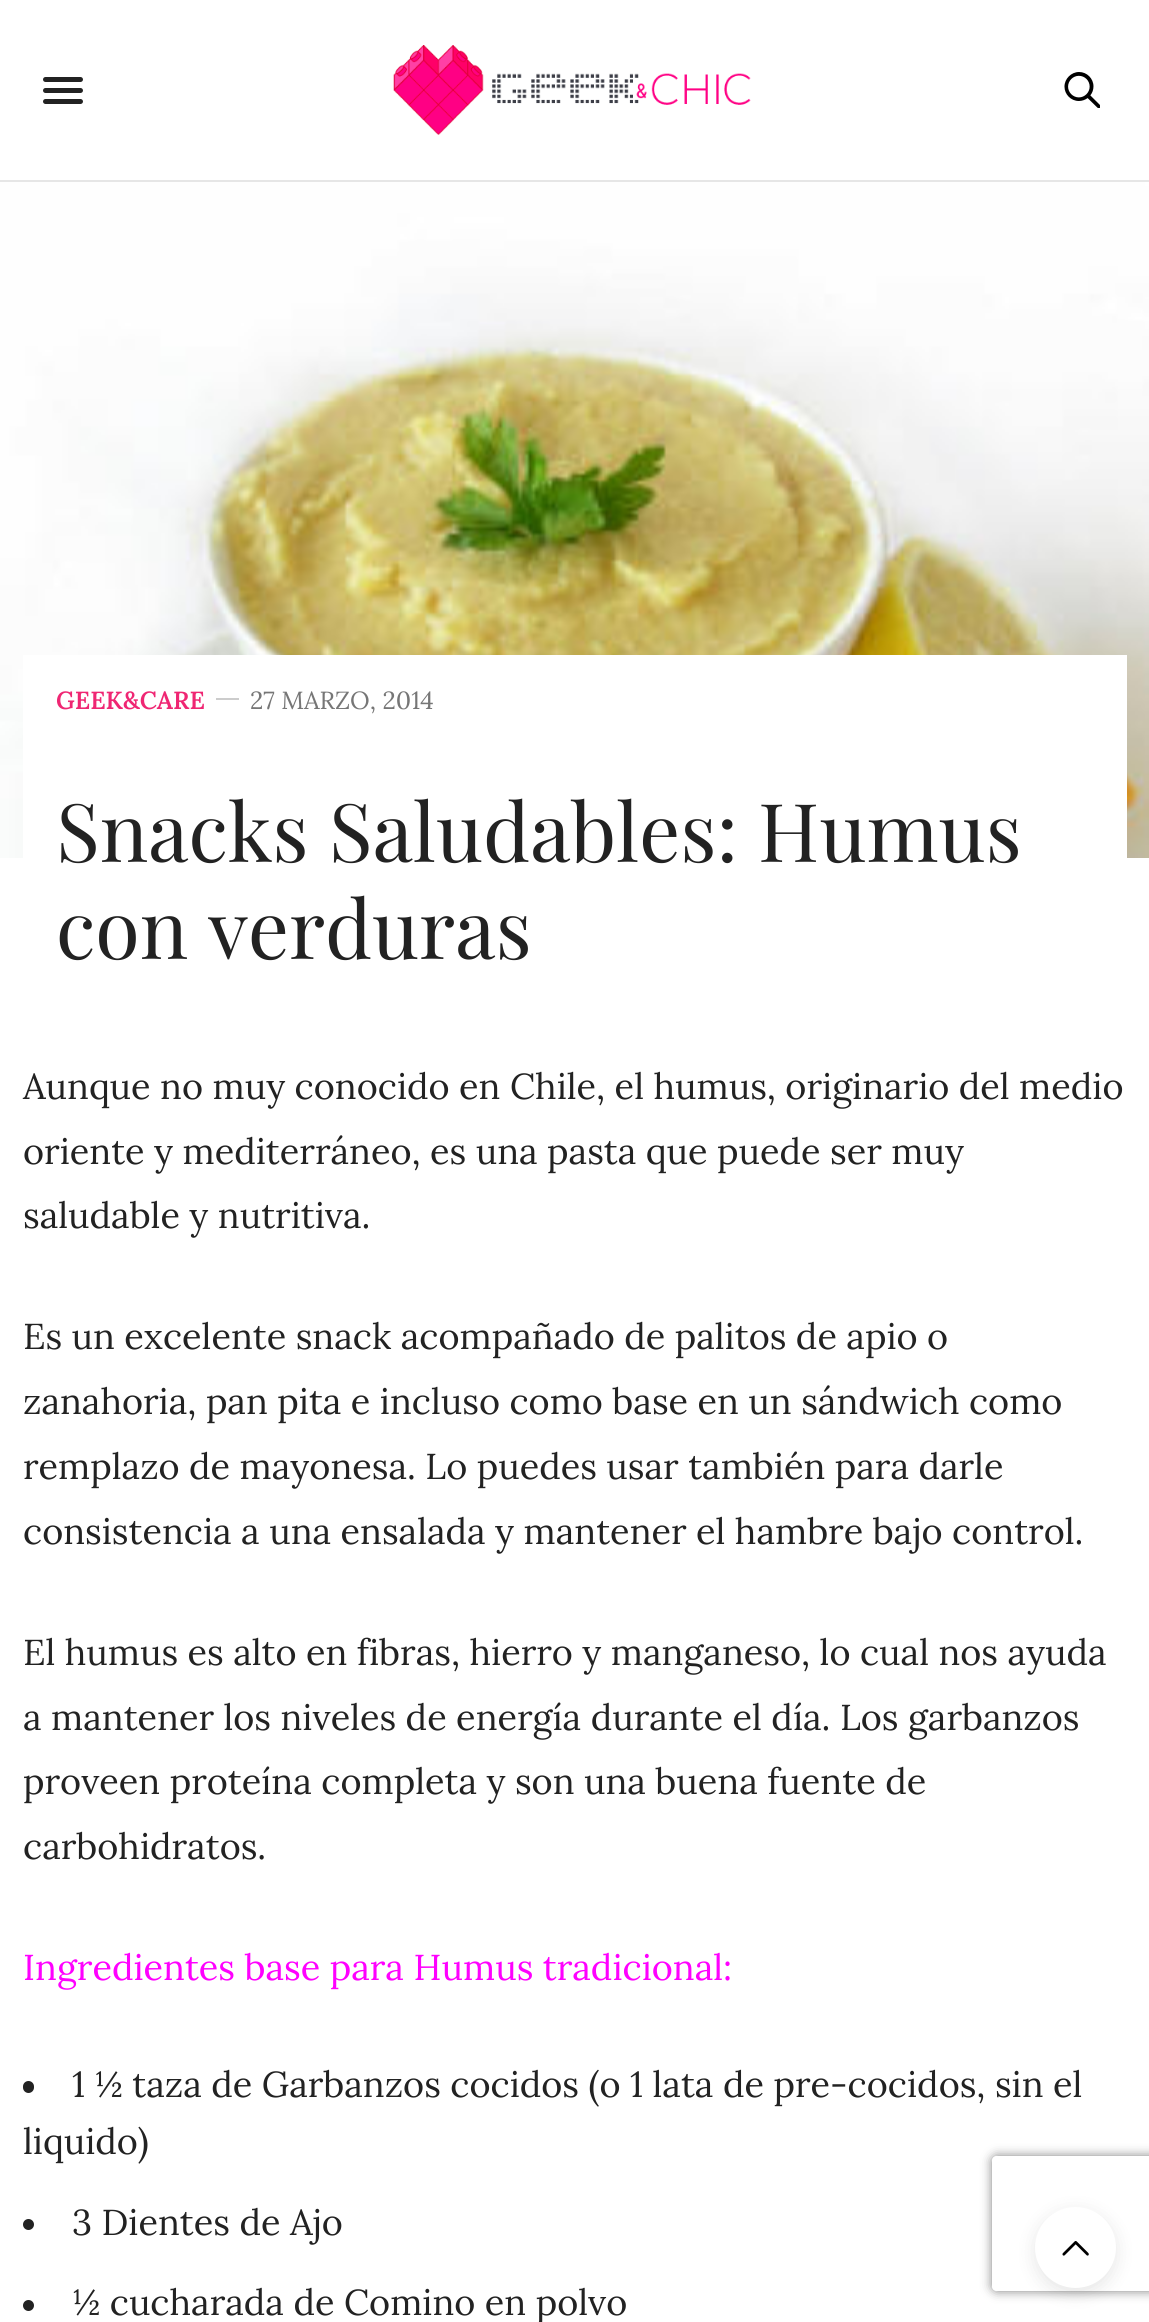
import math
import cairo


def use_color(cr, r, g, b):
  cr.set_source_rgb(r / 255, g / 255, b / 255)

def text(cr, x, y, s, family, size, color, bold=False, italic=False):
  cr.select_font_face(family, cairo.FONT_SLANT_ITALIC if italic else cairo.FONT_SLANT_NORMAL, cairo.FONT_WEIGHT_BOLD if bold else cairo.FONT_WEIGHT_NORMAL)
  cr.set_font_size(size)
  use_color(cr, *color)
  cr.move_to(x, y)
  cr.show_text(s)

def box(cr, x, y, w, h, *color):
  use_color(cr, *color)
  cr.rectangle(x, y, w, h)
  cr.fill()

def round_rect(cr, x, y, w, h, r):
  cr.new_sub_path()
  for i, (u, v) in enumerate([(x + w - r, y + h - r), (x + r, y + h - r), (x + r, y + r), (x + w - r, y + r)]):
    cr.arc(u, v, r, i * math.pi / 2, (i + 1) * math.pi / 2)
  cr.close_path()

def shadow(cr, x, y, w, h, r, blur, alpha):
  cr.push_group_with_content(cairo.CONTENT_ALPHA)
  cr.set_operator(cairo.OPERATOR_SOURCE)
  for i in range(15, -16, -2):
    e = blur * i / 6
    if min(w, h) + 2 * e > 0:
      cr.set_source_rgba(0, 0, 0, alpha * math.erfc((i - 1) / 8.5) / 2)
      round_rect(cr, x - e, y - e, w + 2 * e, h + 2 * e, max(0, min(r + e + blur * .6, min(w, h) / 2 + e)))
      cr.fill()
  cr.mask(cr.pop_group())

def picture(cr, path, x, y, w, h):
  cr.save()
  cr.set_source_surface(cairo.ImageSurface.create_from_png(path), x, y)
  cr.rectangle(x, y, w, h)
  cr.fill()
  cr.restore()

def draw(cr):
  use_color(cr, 255, 255, 255)
  cr.paint()
  box(cr, 0, 180, 1149, 2, 230, 230, 230)
  use_color(cr, 34, 34, 34)
  round_rect(cr, 43, 77, 40, 5, 2.5)
  cr.fill()
  round_rect(cr, 43, 88, 40, 5, 2.5)
  cr.fill()
  round_rect(cr, 43, 99, 40, 5, 2.5)
  cr.fill()
  picture(cr, "img_01.png", 393, 45, 358, 90)
  picture(cr, "img_02.png", 1064, 72, 36, 36)
  picture(cr, "img_03.png", 0, 182, 1149, 676)
  box(cr, 23, 655, 1104, 203, 255, 255, 255)
  box(cr, 216, 698, 23, 2, 204, 204, 204)
  use_color(cr, 34, 34, 34)
  round_rect(cr, 23, 2081, 11, 12, 5.5)
  cr.fill()
  cr.arc(28.5, 2224.5, 5.5, 0, 2 * math.pi)
  cr.fill()
  cr.arc(28.5, 2305.5, 5.5, 0, 2 * math.pi)
  cr.fill()
  cr.save()
  cr.set_fill_rule(cairo.FILL_RULE_EVEN_ODD)
  cr.new_path()
  cr.move_to(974, 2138)
  cr.line_to(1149, 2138)
  cr.line_to(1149, 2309)
  cr.line_to(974, 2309)
  cr.close_path()
  cr.move_to(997, 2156)
  cr.line_to(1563, 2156)
  cr.curve_to(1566, 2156, 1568, 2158, 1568, 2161)
  cr.line_to(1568, 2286)
  cr.curve_to(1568, 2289, 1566, 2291, 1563, 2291)
  cr.line_to(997, 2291)
  cr.curve_to(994, 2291, 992, 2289, 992, 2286)
  cr.line_to(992, 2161)
  cr.curve_to(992, 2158, 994, 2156, 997, 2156)
  cr.close_path()
  cr.clip()
  use_color(cr, 128, 128, 128)
  shadow(cr, 992, 2156, 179, 135, 5, 5.5, 1)
  cr.restore()
  use_color(cr, 0, 0, 0)
  shadow(cr, 1035, 2212, 81, 81, 40.5, 9, 0.1)
  use_color(cr, 255, 255, 255)
  cr.arc(1075.5, 2247.5, 40.5, 0, 2 * math.pi)
  cr.fill()
  picture(cr, "img_04.png", 1062, 2241, 27, 15)
  text(cr, 56, 709, "GEEK&CARE", "Lora SemiBold", 24.75, (239, 38, 115))
  text(cr, 250, 709, "27 MARZO, 2014", "Lora", 24.75, (118, 118, 118))
  text(cr, 56, 862, "Snacks Saludables: Humus", "Playfair Display", 81, (34, 34, 34))
  text(cr, 56, 959, "con verduras", "Playfair Display", 81, (34, 34, 34))
  text(cr, 23, 1099, "Aunque no muy conocido en Chile, el humus, originario del medio", "Lora", 36, (34, 34, 34))
  text(cr, 23, 1164, "oriente y mediterráneo, es una pasta que puede ser muy", "Lora", 36, (34, 34, 34))
  text(cr, 23, 1228, "saludable y nutritiva.", "Lora", 36, (34, 34, 34))
  text(cr, 23, 1349, "Es un excelente snack acompañado de palitos de apio o", "Lora", 36, (34, 34, 34))
  text(cr, 23, 1414, "zanahoria, pan pita e incluso como base en un sándwich como", "Lora", 36, (34, 34, 34))
  text(cr, 23, 1479, "remplazo de mayonesa. Lo puedes usar también para darle", "Lora", 36, (34, 34, 34))
  text(cr, 23, 1544, "consistencia a una ensalada y mantener el hambre bajo control.", "Lora", 36, (34, 34, 34))
  text(cr, 23, 1665, "El humus es alto en fibras, hierro y manganeso, lo cual nos ayuda", "Lora", 36, (34, 34, 34))
  text(cr, 23, 1730, "a mantener los niveles de energía durante el día. Los garbanzos", "Lora", 36, (34, 34, 34))
  text(cr, 23, 1794, "proveen proteína completa y son una buena fuente de", "Lora", 36, (34, 34, 34))
  text(cr, 23, 1859, "carbohidratos.", "Lora", 36, (34, 34, 34))
  text(cr, 23, 1980, "Ingredientes base para Humus tradicional:", "Lora", 36, (255, 0, 255))
  text(cr, 72, 2097, "1 ½ taza de Garbanzos cocidos (o 1 lata de pre-cocidos, sin el", "Lora", 36, (34, 34, 34))
  text(cr, 23, 2154, "liquido)", "Lora", 36, (34, 34, 34))
  text(cr, 72, 2235, "3 Dientes de Ajo", "Lora", 36, (34, 34, 34))
  text(cr, 72, 2315, "½ cucharada de Comino en polvo", "Lora", 36, (34, 34, 34))


surface = cairo.ImageSurface(cairo.FORMAT_RGB24, 1149, 2322)
cr = cairo.Context(surface)
options = cairo.FontOptions()
options.set_hint_metrics(cairo.HINT_METRICS_OFF)
options.set_hint_style(cairo.HINT_STYLE_NONE)
cr.set_font_options(options)
cr.set_miter_limit(4)
draw(cr)
surface.write_to_png("out.png")
